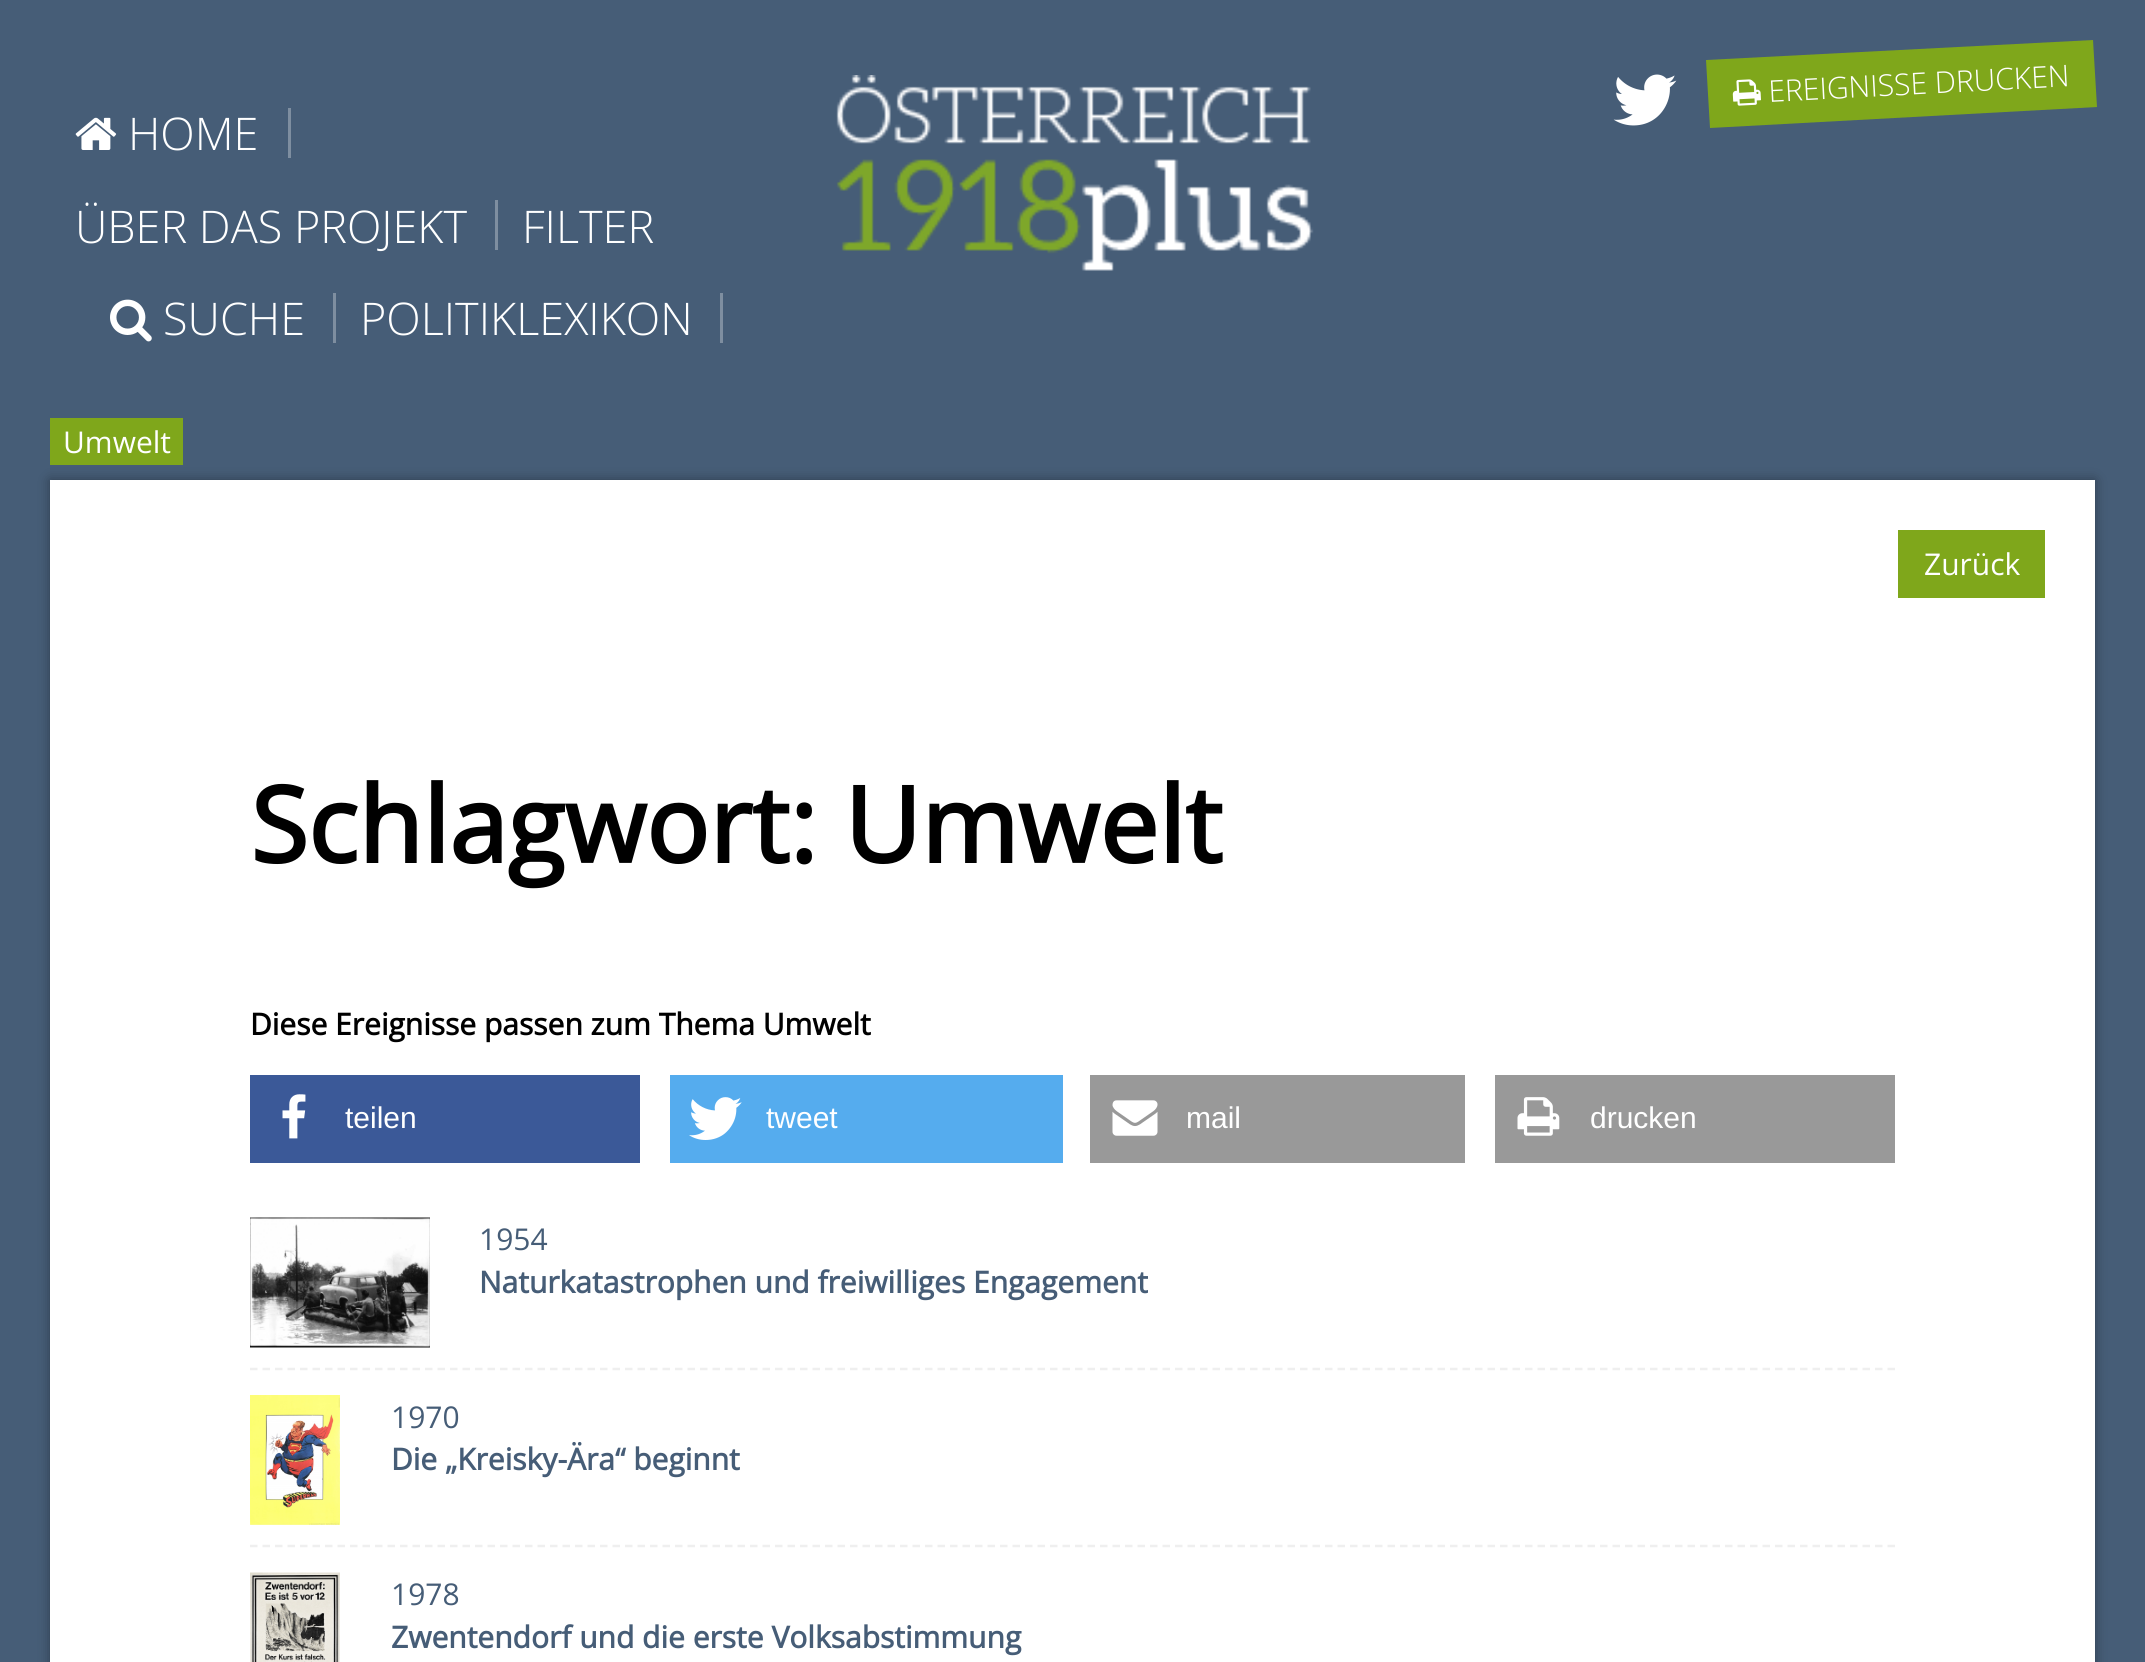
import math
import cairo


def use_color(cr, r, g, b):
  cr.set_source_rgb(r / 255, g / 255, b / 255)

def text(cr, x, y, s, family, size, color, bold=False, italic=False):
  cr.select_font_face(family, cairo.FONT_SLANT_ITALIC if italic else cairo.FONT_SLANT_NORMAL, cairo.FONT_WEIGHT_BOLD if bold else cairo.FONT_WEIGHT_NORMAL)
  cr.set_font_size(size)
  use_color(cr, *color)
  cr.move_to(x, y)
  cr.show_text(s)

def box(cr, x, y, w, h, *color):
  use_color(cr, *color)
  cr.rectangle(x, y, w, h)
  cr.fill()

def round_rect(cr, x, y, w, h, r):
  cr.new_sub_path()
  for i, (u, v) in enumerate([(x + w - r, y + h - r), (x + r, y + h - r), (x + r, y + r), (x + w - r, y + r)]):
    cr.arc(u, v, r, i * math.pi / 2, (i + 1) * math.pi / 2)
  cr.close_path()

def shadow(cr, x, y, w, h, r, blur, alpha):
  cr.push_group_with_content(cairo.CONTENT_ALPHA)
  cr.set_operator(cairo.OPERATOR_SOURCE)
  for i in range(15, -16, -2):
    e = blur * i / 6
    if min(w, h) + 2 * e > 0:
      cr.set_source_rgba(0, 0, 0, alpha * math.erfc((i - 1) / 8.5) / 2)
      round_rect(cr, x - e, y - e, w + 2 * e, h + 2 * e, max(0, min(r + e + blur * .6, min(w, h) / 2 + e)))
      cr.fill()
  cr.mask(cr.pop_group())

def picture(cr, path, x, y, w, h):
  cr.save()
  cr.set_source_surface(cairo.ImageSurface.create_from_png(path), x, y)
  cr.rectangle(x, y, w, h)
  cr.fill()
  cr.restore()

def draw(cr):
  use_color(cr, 70, 93, 119)
  cr.paint()
  picture(cr, "img_01.png", 75, 117, 42, 33)
  box(cr, 288, 108, 3, 50, 126, 142, 160)
  box(cr, 495, 200, 3, 50, 126, 142, 160)
  picture(cr, "img_02.png", 836, 75, 478, 196)
  picture(cr, "img_03.png", 1613, 74, 64, 52)
  use_color(cr, 127, 167, 27)
  cr.new_path()
  cr.move_to(1706, 60)
  cr.line_to(2093, 40)
  cr.line_to(2097, 107)
  cr.line_to(1710, 128)
  cr.close_path()
  cr.fill()
  picture(cr, "img_04.png", 1732, 79, 29, 27)
  picture(cr, "img_05.png", 110, 299, 42, 43)
  box(cr, 333, 293, 3, 50, 126, 142, 160)
  box(cr, 720, 293, 3, 50, 126, 142, 160)
  box(cr, 50, 418, 133, 47, 127, 167, 27)
  use_color(cr, 0, 0, 0)
  shadow(cr, 50, 480, 2045, 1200, 0, 6, 0.35)
  box(cr, 50, 480, 2045, 1182, 255, 255, 255)
  box(cr, 1898, 530, 147, 68, 127, 167, 27)
  box(cr, 250, 1075, 390, 88, 59, 89, 152)
  picture(cr, "img_06.png", 282, 1094, 24, 45)
  box(cr, 670, 1075, 393, 88, 85, 172, 238)
  picture(cr, "img_07.png", 689, 1097, 53, 43)
  box(cr, 1090, 1075, 375, 88, 153, 153, 153)
  picture(cr, "img_08.png", 1112, 1100, 46, 36)
  box(cr, 1495, 1075, 400, 88, 153, 153, 153)
  picture(cr, "img_09.png", 1517, 1097, 43, 39)
  cr.new_path()
  cr.move_to(250, 1369)
  cr.line_to(1895, 1369)
  use_color(cr, 239, 239, 239)
  cr.set_line_width(2.5)
  cr.set_dash([7.5, 5])
  cr.stroke()
  picture(cr, "img_10.png", 250, 1217, 180, 131)
  cr.new_path()
  cr.move_to(250, 1546)
  cr.line_to(1895, 1546)
  cr.stroke()
  picture(cr, "img_11.png", 250, 1395, 90, 130)
  picture(cr, "img_12.png", 250, 1572, 90, 90)
  text(cr, 128, 150, "HOME", "Open Sans Light", 45, (255, 255, 255))
  text(cr, 75, 243, "ÜBER DAS PROJEKT", "Open Sans Light", 45, (255, 255, 255))
  text(cr, 522, 243, "FILTER", "Open Sans Light", 45, (255, 255, 255))
  cr.save()
  cr.translate(1769, 102)
  cr.rotate(-3 * math.pi / 180)
  text(cr, 0, 0, "EREIGNISSE DRUCKEN", "Open Sans Light", 30, (255, 255, 255))
  cr.restore()
  text(cr, 163, 335, "SUCHE", "Open Sans Light", 45, (255, 255, 255))
  text(cr, 360, 335, "POLITIKLEXIKON", "Open Sans Light", 45, (255, 255, 255))
  text(cr, 63, 453, "Umwelt", "Open Sans", 30, (255, 255, 255))
  text(cr, 1924, 575, "Zurück", "Open Sans", 30, (255, 255, 255))
  text(cr, 250, 863, "Schlagwort: Umwelt", "Open Sans", 105, (0, 0, 0), bold=True)
  text(cr, 250, 1035, "Diese Ereignisse passen zum Thema Umwelt", "Open Sans", 30, (0, 0, 0), bold=True)
  text(cr, 345, 1128, "teilen", "Liberation Sans", 30, (255, 255, 255))
  text(cr, 766, 1128, "tweet", "Liberation Sans", 30, (255, 255, 255))
  text(cr, 1186, 1128, "mail", "Liberation Sans", 30, (255, 255, 255))
  text(cr, 1590, 1128, "drucken", "Liberation Sans", 30, (255, 255, 255))
  text(cr, 479, 1250, "1954", "Open Sans", 30, (70, 93, 119))
  text(cr, 479, 1293, "Naturkatastrophen und freiwilliges Engagement", "Open Sans", 30, (70, 93, 119), bold=True)
  text(cr, 391, 1428, "1970", "Open Sans", 30, (70, 93, 119))
  text(cr, 391, 1470, "Die „Kreisky-Ära“ beginnt", "Open Sans", 30, (70, 93, 119), bold=True)
  text(cr, 391, 1605, "1978", "Open Sans", 30, (70, 93, 119))
  text(cr, 391, 1648, "Zwentendorf und die erste Volksabstimmung", "Open Sans", 30, (70, 93, 119), bold=True)


surface = cairo.ImageSurface(cairo.FORMAT_RGB24, 2145, 1662)
cr = cairo.Context(surface)
options = cairo.FontOptions()
options.set_hint_metrics(cairo.HINT_METRICS_OFF)
options.set_hint_style(cairo.HINT_STYLE_NONE)
cr.set_font_options(options)
cr.set_miter_limit(4)
draw(cr)
surface.write_to_png("out.png")
